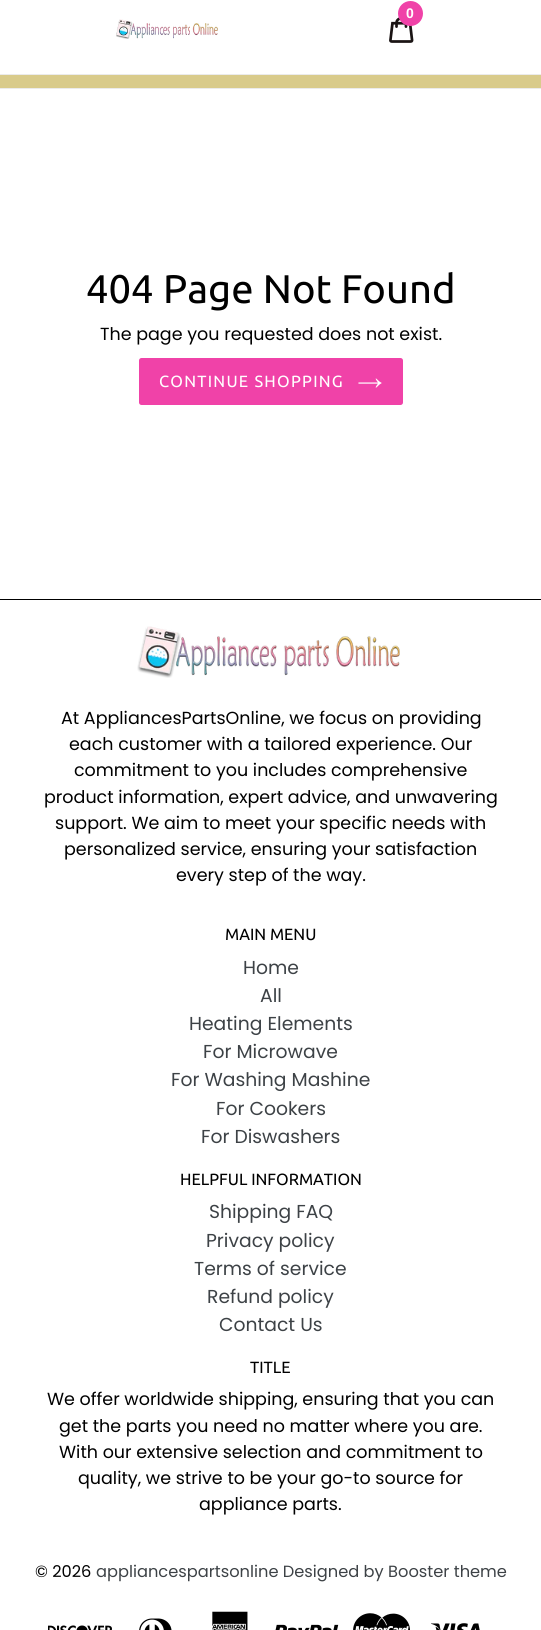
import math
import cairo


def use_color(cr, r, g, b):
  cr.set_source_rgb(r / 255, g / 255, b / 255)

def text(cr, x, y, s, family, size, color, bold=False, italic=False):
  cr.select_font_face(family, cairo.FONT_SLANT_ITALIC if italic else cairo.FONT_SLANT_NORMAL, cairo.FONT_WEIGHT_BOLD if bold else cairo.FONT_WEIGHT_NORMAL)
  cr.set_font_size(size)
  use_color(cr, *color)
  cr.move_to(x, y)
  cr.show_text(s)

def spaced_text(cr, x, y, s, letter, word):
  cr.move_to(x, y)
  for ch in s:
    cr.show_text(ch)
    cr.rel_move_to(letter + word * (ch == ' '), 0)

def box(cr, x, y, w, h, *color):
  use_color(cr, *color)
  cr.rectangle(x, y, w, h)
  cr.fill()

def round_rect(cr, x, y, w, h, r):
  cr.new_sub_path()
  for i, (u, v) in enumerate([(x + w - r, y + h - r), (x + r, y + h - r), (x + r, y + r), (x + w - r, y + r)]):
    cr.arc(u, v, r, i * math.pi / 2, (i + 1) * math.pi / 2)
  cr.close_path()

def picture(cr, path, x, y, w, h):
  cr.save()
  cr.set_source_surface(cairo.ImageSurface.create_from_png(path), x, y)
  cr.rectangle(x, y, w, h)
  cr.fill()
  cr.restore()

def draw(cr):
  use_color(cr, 255, 255, 255)
  cr.paint()
  box(cr, 0, 74, 541, 1, 235, 235, 235)
  picture(cr, "img_01.png", 389, 17, 25, 26)
  use_color(cr, 240, 66, 168)
  cr.arc(410.5, 13.5, 12.5, 0, 2 * math.pi)
  cr.fill()
  picture(cr, "img_02.png", 116, 19, 102, 20)
  box(cr, 0, 75, 541, 13, 217, 203, 139)
  box(cr, 0, 88, 541, 1, 235, 235, 235)
  use_color(cr, 240, 66, 168)
  round_rect(cr, 139, 358, 264, 47, 2.5)
  cr.fill()
  picture(cr, "img_03.png", 358, 378, 24, 10)
  box(cr, 0, 599, 541, 1, 0, 0, 0)
  picture(cr, "img_04.png", 137, 626, 263, 52)
  picture(cr, "img_05.png", 48, 1625, 64, 5)
  picture(cr, "img_06.png", 139, 1618, 33, 12)
  picture(cr, "img_07.png", 212, 1611, 36, 19)
  picture(cr, "img_08.png", 275, 1624, 64, 6)
  picture(cr, "img_09.png", 353, 1613, 57, 17)
  picture(cr, "img_10.png", 431, 1623, 49, 7)
  cr.select_font_face("Liberation Sans", cairo.FONT_SLANT_NORMAL, cairo.FONT_WEIGHT_BOLD)
  cr.set_font_size(14)
  use_color(cr, 255, 255, 255)
  spaced_text(cr, 406, 18, "0", 1, 0)
  text(cr, 86, 303, "404 Page Not Found", "Ubuntu", 40, (0, 0, 0))
  text(cr, 100, 340, "The page you requested does not exist.", "Poppins", 17.5, (0, 0, 0))
  cr.select_font_face("Ubuntu")
  cr.set_font_size(16.25)
  use_color(cr, 255, 255, 255)
  spaced_text(cr, 159, 387, "CONTINUE SHOPPING", 1.25, 0)
  text(cr, 61, 724, "At AppliancesPartsOnline, we focus on providing", "Poppins", 17.5, (0, 0, 0))
  text(cr, 69, 750, "each customer with a tailored experience. Our", "Poppins", 17.5, (0, 0, 0))
  text(cr, 74, 776, "commitment to you includes comprehensive", "Poppins", 17.5, (0, 0, 0))
  text(cr, 44, 803, "product information, expert advice, and unwavering", "Poppins", 17.5, (0, 0, 0))
  text(cr, 55, 829, "support. We aim to meet your specific needs with", "Poppins", 17.5, (0, 0, 0))
  text(cr, 64, 855, "personalized service, ensuring your satisfaction", "Poppins", 17.5, (0, 0, 0))
  text(cr, 176, 881, "every step of the way.", "Poppins", 17.5, (0, 0, 0))
  text(cr, 225, 940, "MAIN MENU", "Ubuntu", 16.25, (0, 0, 0))
  text(cr, 243, 974, "Home", "Poppins", 18.75, (61, 66, 70))
  text(cr, 260, 1002, "All", "Poppins", 18.75, (61, 66, 70))
  text(cr, 189, 1030, "Heating Elements", "Poppins", 18.75, (61, 66, 70))
  text(cr, 203, 1058, "For Microwave", "Poppins", 18.75, (61, 66, 70))
  text(cr, 171, 1086, "For Washing Mashine", "Poppins", 18.75, (61, 66, 70))
  text(cr, 216, 1115, "For Cookers", "Poppins", 18.75, (61, 66, 70))
  text(cr, 201, 1143, "For Diswashers", "Poppins", 18.75, (61, 66, 70))
  text(cr, 180, 1185, "HELPFUL INFORMATION", "Ubuntu", 16.25, (0, 0, 0))
  text(cr, 209, 1218, "Shipping FAQ", "Poppins", 18.75, (61, 66, 70))
  text(cr, 206, 1247, "Privacy policy", "Poppins", 18.75, (61, 66, 70))
  text(cr, 194, 1275, "Terms of service", "Poppins", 18.75, (61, 66, 70))
  text(cr, 207, 1303, "Refund policy", "Poppins", 18.75, (61, 66, 70))
  text(cr, 219, 1331, "Contact Us", "Poppins", 18.75, (61, 66, 70))
  text(cr, 250, 1373, "TITLE", "Ubuntu", 16.25, (0, 0, 0))
  text(cr, 47, 1405, "We offer worldwide shipping, ensuring that you can", "Poppins", 17.5, (0, 0, 0))
  text(cr, 59, 1432, "get the parts you need no matter where you are.", "Poppins", 17.5, (0, 0, 0))
  text(cr, 59, 1458, "With our extensive selection and commitment to", "Poppins", 17.5, (0, 0, 0))
  text(cr, 78, 1484, "quality, we strive to be your go-to source for", "Poppins", 17.5, (0, 0, 0))
  text(cr, 199, 1510, "appliance parts.", "Poppins", 17.5, (0, 0, 0))
  text(cr, 35, 1577, "© 2026", "Poppins", 16.25, (0, 0, 0))
  text(cr, 96, 1577, "appliancespartsonline Designed by Booster theme", "Poppins", 16.25, (61, 66, 70))


surface = cairo.ImageSurface(cairo.FORMAT_RGB24, 541, 1630)
cr = cairo.Context(surface)
options = cairo.FontOptions()
options.set_hint_metrics(cairo.HINT_METRICS_OFF)
options.set_hint_style(cairo.HINT_STYLE_NONE)
cr.set_font_options(options)
cr.set_miter_limit(4)
draw(cr)
surface.write_to_png("out.png")
